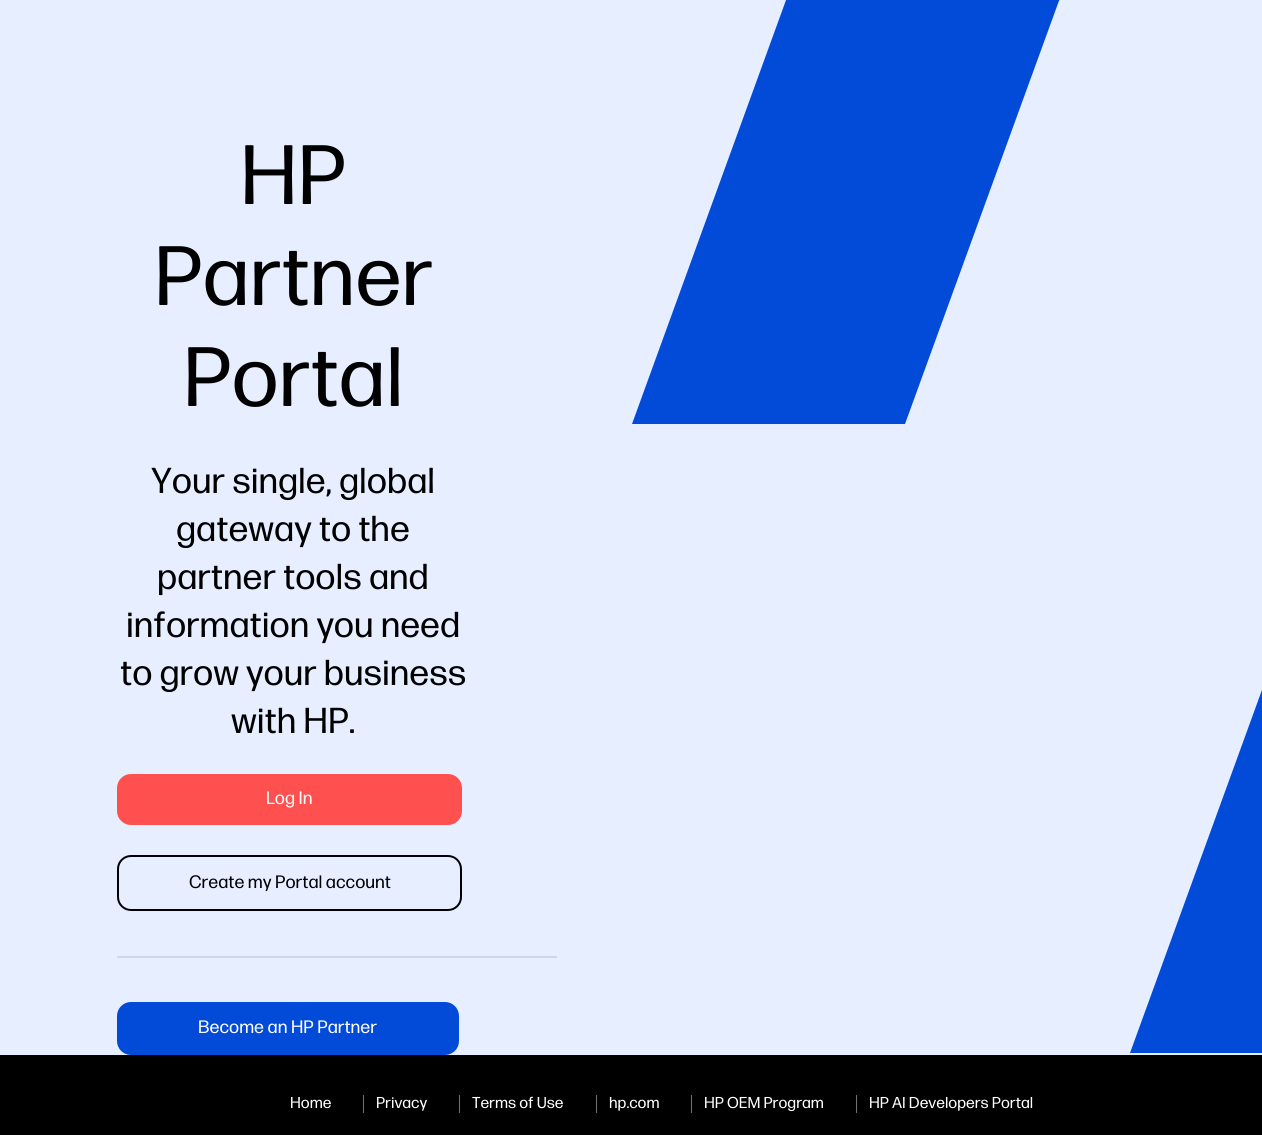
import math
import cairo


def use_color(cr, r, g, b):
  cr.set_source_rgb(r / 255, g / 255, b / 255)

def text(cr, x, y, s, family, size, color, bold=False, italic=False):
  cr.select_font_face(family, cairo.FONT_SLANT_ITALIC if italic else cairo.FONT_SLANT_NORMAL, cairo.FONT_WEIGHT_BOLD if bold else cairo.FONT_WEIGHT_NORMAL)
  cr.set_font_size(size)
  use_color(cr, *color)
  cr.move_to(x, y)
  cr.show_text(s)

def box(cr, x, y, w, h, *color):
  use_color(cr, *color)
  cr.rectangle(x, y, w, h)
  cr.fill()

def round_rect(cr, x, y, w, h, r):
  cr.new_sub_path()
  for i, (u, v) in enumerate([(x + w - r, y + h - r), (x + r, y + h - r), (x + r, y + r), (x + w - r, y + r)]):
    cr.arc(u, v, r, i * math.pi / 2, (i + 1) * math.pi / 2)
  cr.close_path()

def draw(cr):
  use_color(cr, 0, 0, 0)
  cr.paint()
  box(cr, 0, 0, 1262, 1055, 230, 238, 255)
  use_color(cr, 255, 80, 80)
  round_rect(cr, 117, 774, 345, 51, 14)
  cr.fill()
  round_rect(cr, 118, 856, 343, 54, 13)
  use_color(cr, 0, 0, 0)
  cr.stroke()
  box(cr, 117, 956, 440, 2, 207, 214, 230)
  use_color(cr, 2, 74, 216)
  round_rect(cr, 117, 1002, 342, 53, 14)
  cr.fill()
  cr.new_path()
  cr.move_to(905, 424)
  cr.line_to(632, 424)
  cr.line_to(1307, -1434)
  cr.line_to(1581, -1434)
  cr.close_path()
  cr.fill()
  cr.new_path()
  cr.move_to(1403, 1053)
  cr.line_to(1130, 1053)
  cr.line_to(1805, -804)
  cr.line_to(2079, -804)
  cr.close_path()
  cr.fill()
  box(cr, 363, 1095, 1, 18, 115, 115, 115)
  box(cr, 459, 1095, 1, 18, 115, 115, 115)
  box(cr, 596, 1095, 1, 18, 115, 115, 115)
  box(cr, 691, 1095, 1, 18, 115, 115, 115)
  box(cr, 856, 1095, 1, 18, 115, 115, 115)
  text(cr, 240, 204, "HP", "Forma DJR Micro", 84, (0, 0, 0))
  text(cr, 154, 305, "Partner", "Forma DJR Micro", 84, (0, 0, 0))
  text(cr, 183, 406, "Portal", "Forma DJR Micro", 84, (0, 0, 0))
  text(cr, 151, 493, "Your single, global", "Forma DJR Micro", 36, (0, 0, 0))
  text(cr, 176, 541, "gateway to the", "Forma DJR Micro", 36, (0, 0, 0))
  text(cr, 157, 589, "partner tools and", "Forma DJR Micro", 36, (0, 0, 0))
  text(cr, 126, 637, "information you need", "Forma DJR Micro", 36, (0, 0, 0))
  text(cr, 120, 685, "to grow your business", "Forma DJR Micro", 36, (0, 0, 0))
  text(cr, 231, 733, "with HP.", "Forma DJR Micro", 36, (0, 0, 0))
  text(cr, 266, 804, "Log In", "Forma DJR Micro", 18, (255, 255, 255))
  text(cr, 189, 888, "Create my Portal account", "Forma DJR Micro", 18, (0, 0, 0))
  text(cr, 198, 1033, "Become an HP Partner", "Forma DJR Micro", 18, (255, 255, 255))
  text(cr, 290, 1108, "Home", "Forma DJR Micro", 15.75, (255, 255, 255))
  text(cr, 376, 1108, "Privacy", "Forma DJR Micro", 15.75, (255, 255, 255))
  text(cr, 472, 1108, "Terms of Use", "Forma DJR Micro", 15.75, (255, 255, 255))
  text(cr, 609, 1108, "hp.com", "Forma DJR Micro", 15.75, (255, 255, 255))
  text(cr, 704, 1108, "HP OEM Program", "Forma DJR Micro", 15.75, (255, 255, 255))
  text(cr, 869, 1108, "HP AI Developers Portal", "Forma DJR Micro", 15.75, (255, 255, 255))


surface = cairo.ImageSurface(cairo.FORMAT_RGB24, 1262, 1135)
cr = cairo.Context(surface)
options = cairo.FontOptions()
options.set_hint_metrics(cairo.HINT_METRICS_OFF)
options.set_hint_style(cairo.HINT_STYLE_NONE)
cr.set_font_options(options)
cr.set_miter_limit(4)
draw(cr)
surface.write_to_png("out.png")
